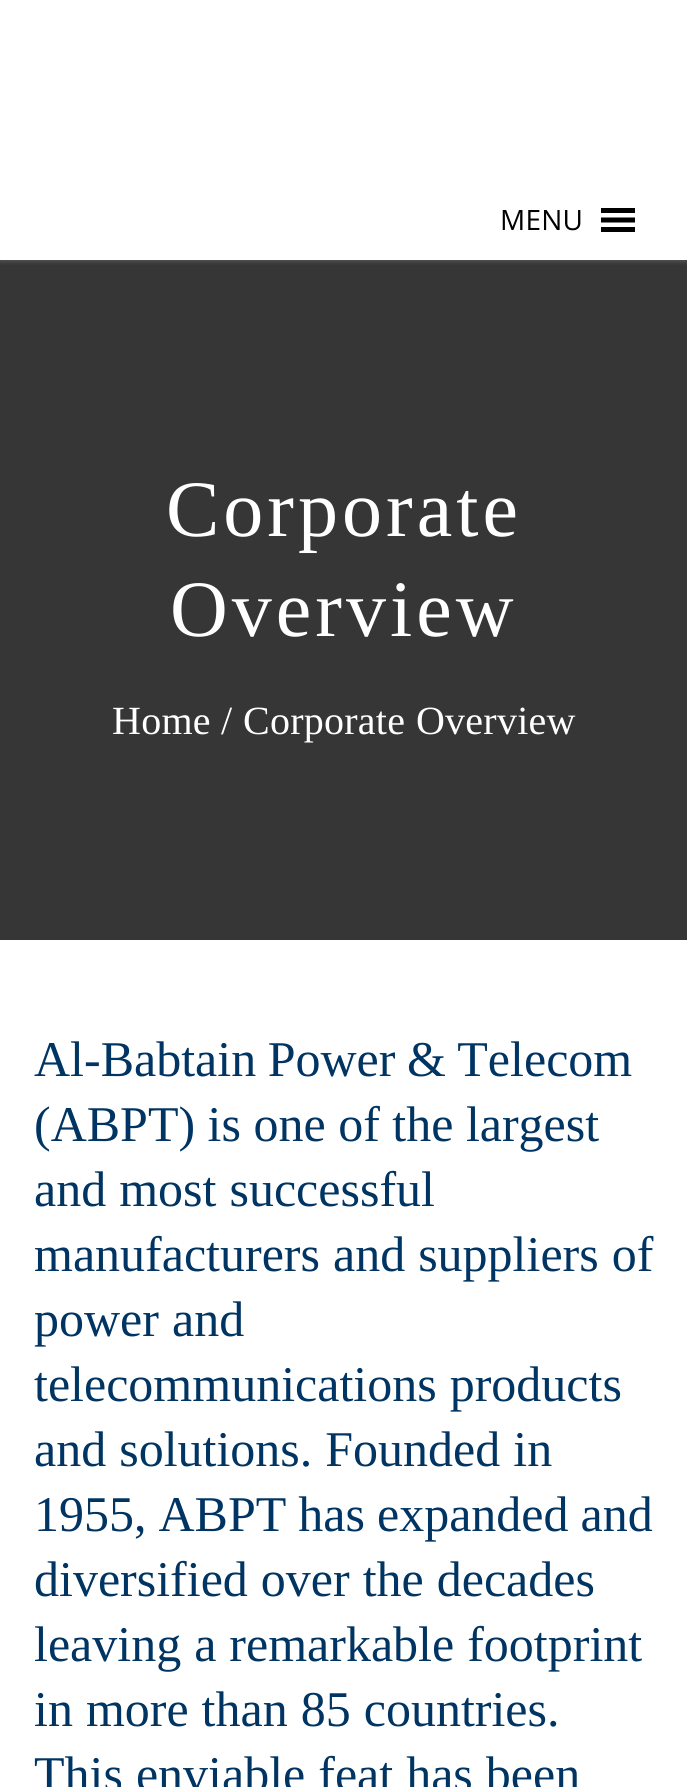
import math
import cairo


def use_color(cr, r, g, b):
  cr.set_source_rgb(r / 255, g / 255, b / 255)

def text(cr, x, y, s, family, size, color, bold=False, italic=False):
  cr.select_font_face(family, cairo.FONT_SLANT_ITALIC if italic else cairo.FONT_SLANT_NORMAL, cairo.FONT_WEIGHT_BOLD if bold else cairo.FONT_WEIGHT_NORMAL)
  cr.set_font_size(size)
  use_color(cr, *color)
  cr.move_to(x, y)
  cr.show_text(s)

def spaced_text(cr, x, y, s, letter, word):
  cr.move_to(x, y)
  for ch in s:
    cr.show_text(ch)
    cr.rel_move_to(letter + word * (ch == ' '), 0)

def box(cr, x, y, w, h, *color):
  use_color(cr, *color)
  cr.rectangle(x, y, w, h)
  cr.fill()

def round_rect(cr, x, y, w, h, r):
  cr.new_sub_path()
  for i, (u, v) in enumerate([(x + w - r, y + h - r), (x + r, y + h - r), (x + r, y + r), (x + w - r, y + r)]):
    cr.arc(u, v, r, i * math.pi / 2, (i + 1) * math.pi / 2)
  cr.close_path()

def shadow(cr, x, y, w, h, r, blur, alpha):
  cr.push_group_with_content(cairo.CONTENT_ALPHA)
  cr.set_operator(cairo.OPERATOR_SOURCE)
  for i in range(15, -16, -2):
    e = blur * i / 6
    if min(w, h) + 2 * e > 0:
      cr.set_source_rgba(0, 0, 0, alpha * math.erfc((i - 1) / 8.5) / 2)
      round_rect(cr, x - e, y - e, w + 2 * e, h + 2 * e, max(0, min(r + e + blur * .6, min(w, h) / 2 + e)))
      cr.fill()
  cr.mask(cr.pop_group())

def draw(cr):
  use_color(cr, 255, 255, 255)
  cr.paint()
  box(cr, 0, 260, 687, 680, 54, 54, 54)
  cr.save()
  cr.rectangle(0, 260, 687, 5)
  cr.clip()
  use_color(cr, 161, 161, 161)
  shadow(cr, 0, 2, 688, 260, 0, 2, 0.25)
  cr.restore()
  use_color(cr, 0, 0, 0)
  cr.new_path()
  cr.move_to(601, 232)
  cr.line_to(635, 232)
  cr.line_to(635, 227)
  cr.line_to(601, 227)
  cr.close_path()
  cr.move_to(601, 208)
  cr.line_to(601, 213)
  cr.line_to(635, 213)
  cr.line_to(635, 208)
  cr.close_path()
  cr.move_to(601, 222.5)
  cr.line_to(635, 222.5)
  cr.line_to(635, 217.5)
  cr.line_to(601, 217.5)
  cr.close_path()
  cr.fill()
  cr.select_font_face("Open Sans")
  cr.set_font_size(28)
  spaced_text(cr, 500, 230, "MENU", 0.25, 0)
  cr.select_font_face("Liberation Serif")
  cr.set_font_size(80)
  use_color(cr, 255, 255, 255)
  spaced_text(cr, 166, 536, "Corporate", 4, 0)
  spaced_text(cr, 170, 636, "Overview", 4, 0)
  cr.set_font_size(40)
  spaced_text(cr, 112, 734, "Home /", 0.25, 0)
  spaced_text(cr, 243, 734, "Corporate Overview", 0.25, 0.5)
  cr.set_font_size(50)
  use_color(cr, 0, 52, 98)
  spaced_text(cr, 34, 1076, "Al-Babtain Power & Telecom", 0, -1)
  text(cr, 34, 1141, "(ABPT) is one of the largest", "Liberation Serif", 50, (0, 52, 98))
  spaced_text(cr, 34, 1206, "and most successful", 0, 0.5)
  spaced_text(cr, 34, 1271, "manufacturers and suppliers of", 0, 0.5)
  spaced_text(cr, 34, 1336, "power and", 0, 0.5)
  spaced_text(cr, 34, 1401, "telecommunications products", 0, 0.5)
  spaced_text(cr, 34, 1466, "and solutions. Founded in", 0, 0.5)
  spaced_text(cr, 34, 1531, "1955, ABPT has expanded and", 0, -0.5)
  spaced_text(cr, 34, 1596, "diversified over the decades", 0, 0.5)
  spaced_text(cr, 34, 1661, "leaving a remarkable footprint", 0, 0.5)
  spaced_text(cr, 34, 1726, "in more than 85 countries.", 0, 0.5)
  spaced_text(cr, 34, 1791, "This enviable feat has been", 0, 0.5)


surface = cairo.ImageSurface(cairo.FORMAT_RGB24, 687, 1787)
cr = cairo.Context(surface)
options = cairo.FontOptions()
options.set_hint_metrics(cairo.HINT_METRICS_OFF)
options.set_hint_style(cairo.HINT_STYLE_NONE)
cr.set_font_options(options)
cr.set_miter_limit(4)
draw(cr)
surface.write_to_png("out.png")
